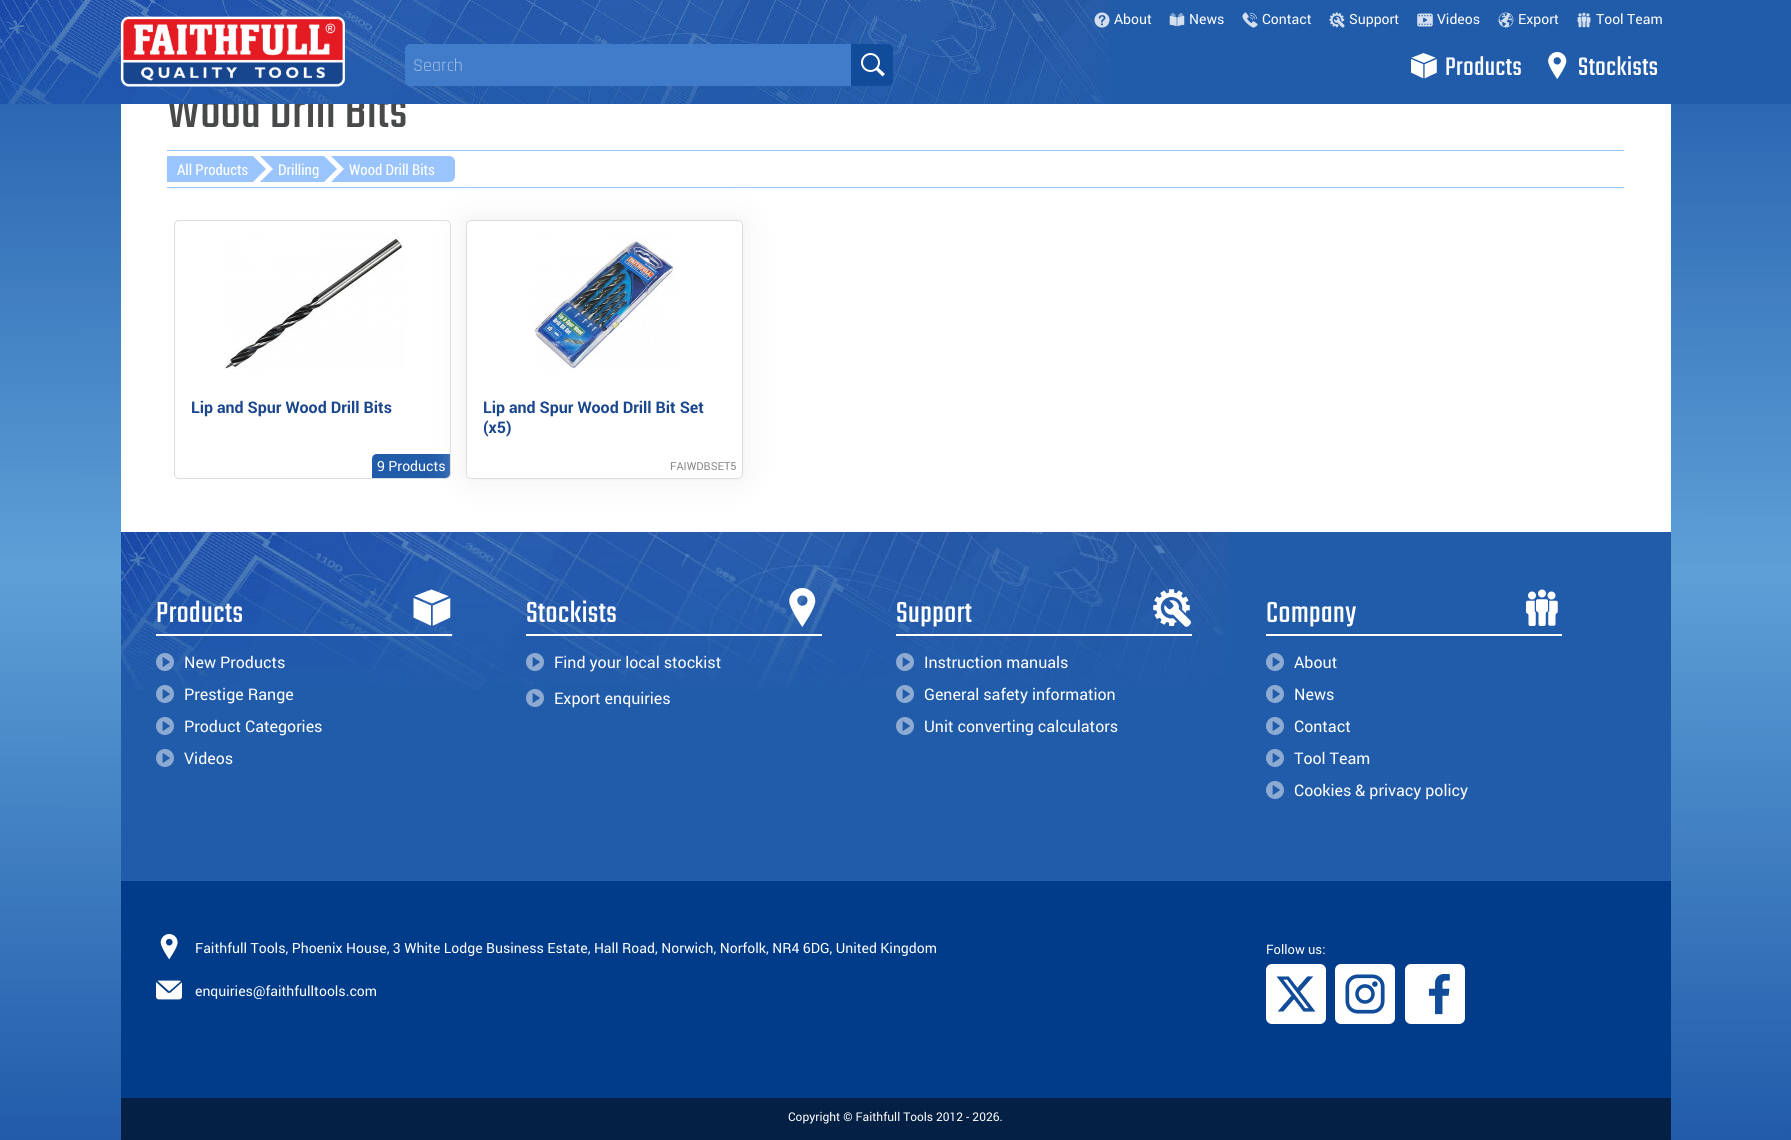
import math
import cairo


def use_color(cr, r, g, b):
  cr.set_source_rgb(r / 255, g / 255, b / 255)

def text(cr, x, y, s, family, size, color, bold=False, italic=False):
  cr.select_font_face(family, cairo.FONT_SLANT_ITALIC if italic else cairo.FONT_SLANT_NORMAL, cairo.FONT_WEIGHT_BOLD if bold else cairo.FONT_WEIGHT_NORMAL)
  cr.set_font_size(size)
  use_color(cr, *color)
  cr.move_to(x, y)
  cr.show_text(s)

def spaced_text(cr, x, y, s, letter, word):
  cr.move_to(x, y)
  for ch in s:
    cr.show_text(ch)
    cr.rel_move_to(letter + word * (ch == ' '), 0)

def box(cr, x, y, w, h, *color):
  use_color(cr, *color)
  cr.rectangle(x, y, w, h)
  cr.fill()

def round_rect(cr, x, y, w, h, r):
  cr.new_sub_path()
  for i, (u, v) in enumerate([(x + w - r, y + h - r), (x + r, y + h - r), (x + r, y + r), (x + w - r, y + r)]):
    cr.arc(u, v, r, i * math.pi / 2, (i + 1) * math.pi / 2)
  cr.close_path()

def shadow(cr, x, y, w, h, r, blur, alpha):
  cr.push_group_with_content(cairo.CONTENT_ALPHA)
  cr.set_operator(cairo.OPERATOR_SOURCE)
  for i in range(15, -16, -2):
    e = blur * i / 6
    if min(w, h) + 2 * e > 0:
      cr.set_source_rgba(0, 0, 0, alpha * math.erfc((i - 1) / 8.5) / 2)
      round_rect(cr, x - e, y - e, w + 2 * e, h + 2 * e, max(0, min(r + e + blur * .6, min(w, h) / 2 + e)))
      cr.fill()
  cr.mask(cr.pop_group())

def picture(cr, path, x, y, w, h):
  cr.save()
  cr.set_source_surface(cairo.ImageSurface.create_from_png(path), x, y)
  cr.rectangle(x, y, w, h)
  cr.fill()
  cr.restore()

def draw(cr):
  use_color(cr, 255, 255, 255)
  cr.paint()
  gradient = cairo.LinearGradient(895, 0, 896, 1140)
  gradient.add_color_stop_rgba(0, 0.129, 0.357, 0.667, 1)
  gradient.add_color_stop_rgba(0.5, 0.365, 0.627, 0.843, 1)
  gradient.add_color_stop_rgba(1, 0.129, 0.357, 0.667, 1)
  cr.set_source(gradient)
  cr.rectangle(0, 104, 1791, 1036)
  cr.fill()
  box(cr, 1110, 0, 681, 104, 33, 92, 170)
  picture(cr, "img_03.png", 1169, 13, 16, 14)
  picture(cr, "img_04.png", 1242, 12, 16, 16)
  picture(cr, "img_05.png", 1329, 12, 16, 16)
  picture(cr, "img_06.png", 1417, 13, 16, 14)
  picture(cr, "img_07.png", 1498, 12, 16, 16)
  picture(cr, "img_08.png", 1577, 12, 14, 16)
  picture(cr, "img_10.png", 1411, 53, 26, 26)
  picture(cr, "img_11.png", 1548, 52, 19, 27)
  box(cr, 121, 104, 1550, 428, 255, 255, 255)
  box(cr, 167, 150, 1457, 1, 154, 196, 253)
  box(cr, 167, 187, 1457, 1, 154, 196, 253)
  box(cr, 167, 156, 86, 26, 154, 196, 253)
  cr.new_path()
  cr.move_to(253, 182)
  cr.line_to(253, 156)
  cr.line_to(266, 169)
  cr.close_path()
  cr.fill()
  box(cr, 273, 156, 51, 26, 154, 196, 253)
  cr.new_path()
  cr.move_to(260, 156)
  cr.line_to(273, 156)
  cr.line_to(273, 169)
  cr.close_path()
  cr.move_to(273, 182)
  cr.line_to(260, 182)
  cr.line_to(273, 169)
  cr.close_path()
  cr.fill()
  cr.new_path()
  cr.move_to(324, 182)
  cr.line_to(324, 156)
  cr.line_to(337, 169)
  cr.close_path()
  cr.fill()
  cr.new_path()
  cr.move_to(344, 156)
  cr.line_to(449, 156)
  cr.curve_to(452.5, 156, 455, 158.5, 455, 162)
  cr.line_to(455, 176)
  cr.curve_to(455, 179.5, 452.5, 182, 449, 182)
  cr.line_to(344, 182)
  cr.close_path()
  cr.fill()
  cr.new_path()
  cr.move_to(331, 156)
  cr.line_to(344, 156)
  cr.line_to(344, 169)
  cr.close_path()
  cr.move_to(344, 182)
  cr.line_to(331, 182)
  cr.line_to(344, 169)
  cr.close_path()
  cr.fill()
  round_rect(cr, 174.5, 220.5, 276, 258, 4.5)
  use_color(cr, 221, 221, 221)
  cr.set_line_width(1)
  cr.stroke()
  picture(cr, "img_12.png", 224, 237, 179, 132)
  use_color(cr, 33, 92, 170)
  cr.new_path()
  cr.move_to(377, 454)
  cr.line_to(450, 454)
  cr.line_to(450, 473)
  cr.curve_to(450, 476, 448, 478, 445, 478)
  cr.line_to(372, 478)
  cr.line_to(372, 459)
  cr.curve_to(372, 456, 374, 454, 377, 454)
  cr.close_path()
  cr.fill()
  use_color(cr, 238, 238, 238)
  shadow(cr, 466, 220, 277, 259, 5, 15, 1)
  use_color(cr, 255, 255, 255)
  round_rect(cr, 466.5, 220.5, 276, 258, 4.5)
  cr.fill_preserve()
  use_color(cr, 221, 221, 221)
  cr.stroke()
  picture(cr, "img_13.png", 534, 237, 140, 132)
  box(cr, 121, 532, 1550, 349, 33, 92, 170)
  picture(cr, "img_14.png", 121, 532, 1110, 158)
  box(cr, 156, 634, 296, 2, 255, 255, 255)
  picture(cr, "img_15.png", 413, 589, 38, 37)
  picture(cr, "img_16.png", 156, 653, 18, 18)
  picture(cr, "img_17.png", 156, 685, 18, 18)
  picture(cr, "img_18.png", 156, 717, 18, 18)
  picture(cr, "img_18.png", 156, 749, 18, 18)
  box(cr, 526, 634, 296, 2, 255, 255, 255)
  picture(cr, "img_19.png", 789, 588, 27, 39)
  picture(cr, "img_20.png", 526, 653, 18, 18)
  picture(cr, "img_21.png", 526, 689, 18, 18)
  box(cr, 896, 634, 296, 2, 255, 255, 255)
  picture(cr, "img_22.png", 1153, 589, 38, 38)
  picture(cr, "img_23.png", 896, 653, 18, 18)
  picture(cr, "img_24.png", 896, 685, 18, 18)
  picture(cr, "img_18.png", 896, 717, 18, 18)
  box(cr, 1266, 634, 296, 2, 255, 255, 255)
  picture(cr, "img_25.png", 1526, 589, 32, 37)
  picture(cr, "img_18.png", 1266, 653, 18, 18)
  picture(cr, "img_18.png", 1266, 685, 18, 18)
  picture(cr, "img_18.png", 1266, 717, 18, 18)
  picture(cr, "img_18.png", 1266, 749, 18, 18)
  picture(cr, "img_18.png", 1266, 781, 18, 18)
  box(cr, 121, 881, 1550, 217, 1, 60, 138)
  picture(cr, "img_26.png", 160, 934, 18, 26)
  picture(cr, "img_27.png", 156, 980, 26, 20)
  use_color(cr, 255, 255, 255)
  round_rect(cr, 1266, 964, 60, 60, 6)
  cr.fill()
  picture(cr, "img_28.png", 1276, 976, 40, 36)
  round_rect(cr, 1335, 964, 60, 60, 6)
  cr.fill()
  picture(cr, "img_29.png", 1345, 974, 40, 40)
  round_rect(cr, 1405, 964, 60, 60, 6)
  cr.fill()
  picture(cr, "img_30.png", 1428, 973, 22, 42)
  box(cr, 121, 1098, 1550, 42, 5, 32, 69)
  text(cr, 1114, 24, "About", "roboto", 14, (255, 255, 255))
  text(cr, 1189, 24, "News", "roboto", 14, (255, 255, 255))
  text(cr, 1262, 24, "Contact", "roboto", 14, (255, 255, 255))
  text(cr, 1349, 24, "Support", "roboto", 14, (255, 255, 255))
  text(cr, 1437, 24, "Videos", "roboto", 14, (255, 255, 255))
  text(cr, 1518, 24, "Export", "roboto", 14, (255, 255, 255))
  text(cr, 1596, 24, "Tool Team", "roboto", 14, (255, 255, 255))
  cr.select_font_face("Teko Light")
  cr.set_font_size(28)
  spaced_text(cr, 1445, 75, "Products", 0.5, 0)
  spaced_text(cr, 1578, 75, "Stockists", 0.5, 0)
  cr.set_font_size(54)
  use_color(cr, 71, 73, 74)
  spaced_text(cr, 167, 127, "Wood Drill Bits", 0.5, 0)
  picture(cr, "img_01.png", 0, 0, 1110, 104)
  use_color(cr, 65, 124, 202)
  round_rect(cr, 405, 44, 488, 42, 5)
  cr.fill()
  use_color(cr, 17, 76, 154)
  cr.new_path()
  cr.move_to(851, 44)
  cr.line_to(888, 44)
  cr.curve_to(891, 44, 893, 46, 893, 49)
  cr.line_to(893, 81)
  cr.curve_to(893, 84, 891, 86, 888, 86)
  cr.line_to(851, 86)
  cr.close_path()
  cr.fill()
  cr.arc(870.5, 62.5, 8.5, 0, 2 * math.pi)
  use_color(cr, 255, 255, 255)
  cr.set_line_width(2)
  cr.stroke()
  cr.new_path()
  cr.move_to(877.5, 67)
  cr.line_to(885, 74)
  cr.line_to(882.5, 76.5)
  cr.line_to(875, 69)
  cr.close_path()
  cr.fill()
  text(cr, 413, 71, "Search", "Rajdhani", 18, (160, 190, 229))
  picture(cr, "img_02.png", 1094, 12, 16, 16)
  picture(cr, "img_09.png", 120, 16, 225, 71)
  text(cr, 177, 175, "All Products", "Roboto Condensed", 15, (255, 255, 255))
  text(cr, 278, 175, "Drilling", "Roboto Condensed", 15, (255, 255, 255))
  text(cr, 349, 175, "Wood Drill Bits", "Roboto Condensed", 15, (255, 255, 255))
  text(cr, 191, 413, "Lip and Spur Wood Drill Bits", "roboto", 16, (26, 70, 141), bold=True)
  text(cr, 377, 471, "9 Products", "roboto", 14, (255, 255, 255))
  text(cr, 483, 413, "Lip and Spur Wood Drill Bit Set", "roboto", 16, (26, 70, 141), bold=True)
  text(cr, 483, 433, "(x5)", "roboto", 16, (26, 70, 141), bold=True)
  text(cr, 670, 470, "FAIWDBSET5", "roboto", 11, (136, 136, 136))
  cr.select_font_face("Teko Light")
  cr.set_font_size(32)
  use_color(cr, 255, 255, 255)
  spaced_text(cr, 156, 622, "Products", 0.5, 0)
  text(cr, 184, 668, "New Products", "roboto", 16, (255, 255, 255))
  text(cr, 184, 700, "Prestige Range", "roboto", 16, (255, 255, 255))
  text(cr, 184, 732, "Product Categories", "roboto", 16, (255, 255, 255))
  text(cr, 184, 764, "Videos", "roboto", 16, (255, 255, 255))
  cr.select_font_face("Teko Light")
  cr.set_font_size(32)
  spaced_text(cr, 526, 622, "Stockists", 0.5, 0)
  text(cr, 554, 668, "Find your local stockist", "roboto", 16, (255, 255, 255))
  text(cr, 554, 704, "Export enquiries", "roboto", 16, (255, 255, 255))
  cr.select_font_face("Teko Light")
  cr.set_font_size(32)
  spaced_text(cr, 896, 622, "Support", 0.5, 0)
  text(cr, 924, 668, "Instruction manuals", "roboto", 16, (255, 255, 255))
  text(cr, 924, 700, "General safety information", "roboto", 16, (255, 255, 255))
  text(cr, 924, 732, "Unit converting calculators", "roboto", 16, (255, 255, 255))
  cr.select_font_face("Teko Light")
  cr.set_font_size(32)
  spaced_text(cr, 1266, 622, "Company", 0.5, 0)
  text(cr, 1294, 668, "About", "roboto", 16, (255, 255, 255))
  text(cr, 1294, 700, "News", "roboto", 16, (255, 255, 255))
  text(cr, 1294, 732, "Contact", "roboto", 16, (255, 255, 255))
  text(cr, 1294, 764, "Tool Team", "roboto", 16, (255, 255, 255))
  text(cr, 1294, 796, "Cookies & privacy policy", "roboto", 16, (255, 255, 255))
  text(cr, 195, 953, "Faithfull Tools, Phoenix House, 3 White Lodge Business Estate, Hall Road, Norwich, Norfolk, NR4 6DG, United Kingdom", "roboto", 14, (255, 255, 255))
  text(cr, 195, 996, "enquiries@faithfulltools.com", "roboto", 14, (255, 255, 255))
  text(cr, 1266, 954, "Follow us:", "roboto", 13, (255, 255, 255))
  text(cr, 788, 1121, "Copyright © Faithfull Tools 2012 - 2026.", "roboto", 12, (255, 255, 255))


surface = cairo.ImageSurface(cairo.FORMAT_RGB24, 1791, 1140)
cr = cairo.Context(surface)
options = cairo.FontOptions()
options.set_hint_metrics(cairo.HINT_METRICS_OFF)
options.set_hint_style(cairo.HINT_STYLE_NONE)
cr.set_font_options(options)
cr.set_miter_limit(4)
draw(cr)
surface.write_to_png("out.png")
